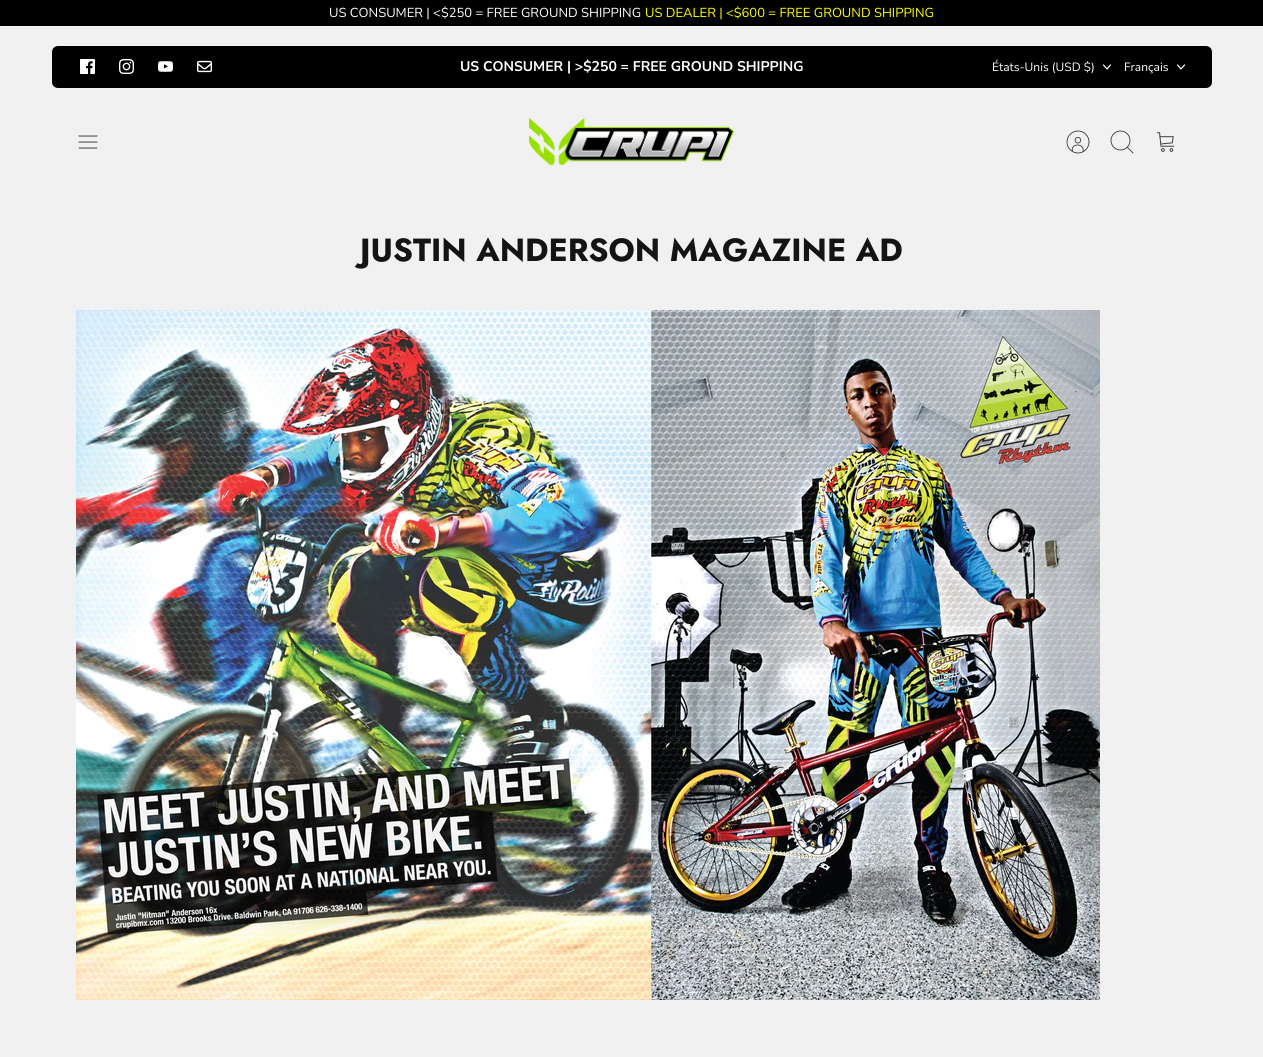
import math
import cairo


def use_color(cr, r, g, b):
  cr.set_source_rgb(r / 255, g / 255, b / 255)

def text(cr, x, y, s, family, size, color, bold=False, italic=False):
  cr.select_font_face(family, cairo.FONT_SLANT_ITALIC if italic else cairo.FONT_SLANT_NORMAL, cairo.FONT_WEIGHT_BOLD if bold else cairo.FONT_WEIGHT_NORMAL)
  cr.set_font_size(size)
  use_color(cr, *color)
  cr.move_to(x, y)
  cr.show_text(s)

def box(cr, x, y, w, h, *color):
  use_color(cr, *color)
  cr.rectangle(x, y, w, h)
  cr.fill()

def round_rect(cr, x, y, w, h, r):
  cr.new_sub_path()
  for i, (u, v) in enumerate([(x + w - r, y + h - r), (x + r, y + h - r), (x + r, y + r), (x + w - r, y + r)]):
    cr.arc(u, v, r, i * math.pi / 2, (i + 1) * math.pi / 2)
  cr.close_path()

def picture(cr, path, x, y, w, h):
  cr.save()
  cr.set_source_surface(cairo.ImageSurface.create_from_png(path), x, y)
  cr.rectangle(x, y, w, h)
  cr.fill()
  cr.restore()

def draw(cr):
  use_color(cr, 241, 241, 241)
  cr.paint()
  box(cr, 0, 0, 1263, 26, 0, 0, 0)
  round_rect(cr, 52, 46, 1160, 42, 6)
  cr.fill()
  picture(cr, "img_01.png", 80, 59, 15, 15)
  picture(cr, "img_02.png", 119, 59, 15, 15)
  picture(cr, "img_03.png", 158, 61, 15, 11)
  picture(cr, "img_04.png", 197, 60, 15, 13)
  cr.new_path()
  cr.move_to(1103.5, 65)
  cr.line_to(1107, 69)
  cr.line_to(1110.5, 65)
  use_color(cr, 255, 255, 255)
  cr.set_line_width(1.2)
  cr.set_line_cap(cairo.LINE_CAP_ROUND)
  cr.set_line_join(cairo.LINE_JOIN_ROUND)
  cr.stroke()
  cr.new_path()
  cr.move_to(1177.5, 65)
  cr.line_to(1181, 69)
  cr.line_to(1184.5, 65)
  cr.stroke()
  picture(cr, "img_05.png", 78, 135, 20, 14)
  picture(cr, "img_06.png", 529, 118, 205, 48)
  cr.new_path()
  cr.move_to(1083, 152)
  cr.curve_to(1085.5, 143, 1070, 142.5, 1072.5, 151.5)
  use_color(cr, 60, 64, 67)
  cr.set_line_width(0.9)
  cr.set_line_cap(cairo.LINE_CAP_BUTT)
  cr.set_line_join(cairo.LINE_JOIN_MITER)
  cr.stroke()
  cr.arc(1077.9, 140.2, 2.8, 0, 2 * math.pi)
  cr.stroke()
  cr.arc(1078, 142, 11, 0, 2 * math.pi)
  cr.stroke()
  cr.arc(1120.5, 140.5, 9.5, 0, 2 * math.pi)
  cr.stroke()
  cr.new_path()
  cr.move_to(1127.5, 147.5)
  cr.line_to(1133, 153)
  cr.set_line_cap(cairo.LINE_CAP_SQUARE)
  cr.stroke()
  picture(cr, "img_07.png", 1157, 132, 17, 20)
  picture(cr, "img_08.png", 76, 310, 1024, 690)
  text(cr, 329, 17, "US CONSUMER | <$250 = FREE GROUND SHIPPING", "Nunito Sans", 13, (255, 255, 255))
  text(cr, 645, 17, "US DEALER | <$600 = FREE GROUND SHIPPING", "Nunito Sans", 13, (255, 255, 0))
  text(cr, 460, 71, "US CONSUMER | >$250 = FREE GROUND SHIPPING", "Nunito Sans", 14, (255, 255, 255), bold=True)
  text(cr, 992, 71, "États-Unis (USD $)", "Nunito Sans", 12, (255, 255, 255))
  text(cr, 1124, 71, "Français", "Nunito Sans", 12, (255, 255, 255))
  text(cr, 360, 261, "JUSTIN ANDERSON MAGAZINE AD", "Jost", 32, (20, 20, 20), bold=True)


surface = cairo.ImageSurface(cairo.FORMAT_RGB24, 1263, 1057)
cr = cairo.Context(surface)
options = cairo.FontOptions()
options.set_hint_metrics(cairo.HINT_METRICS_OFF)
options.set_hint_style(cairo.HINT_STYLE_NONE)
cr.set_font_options(options)
cr.set_miter_limit(4)
draw(cr)
surface.write_to_png("out.png")
